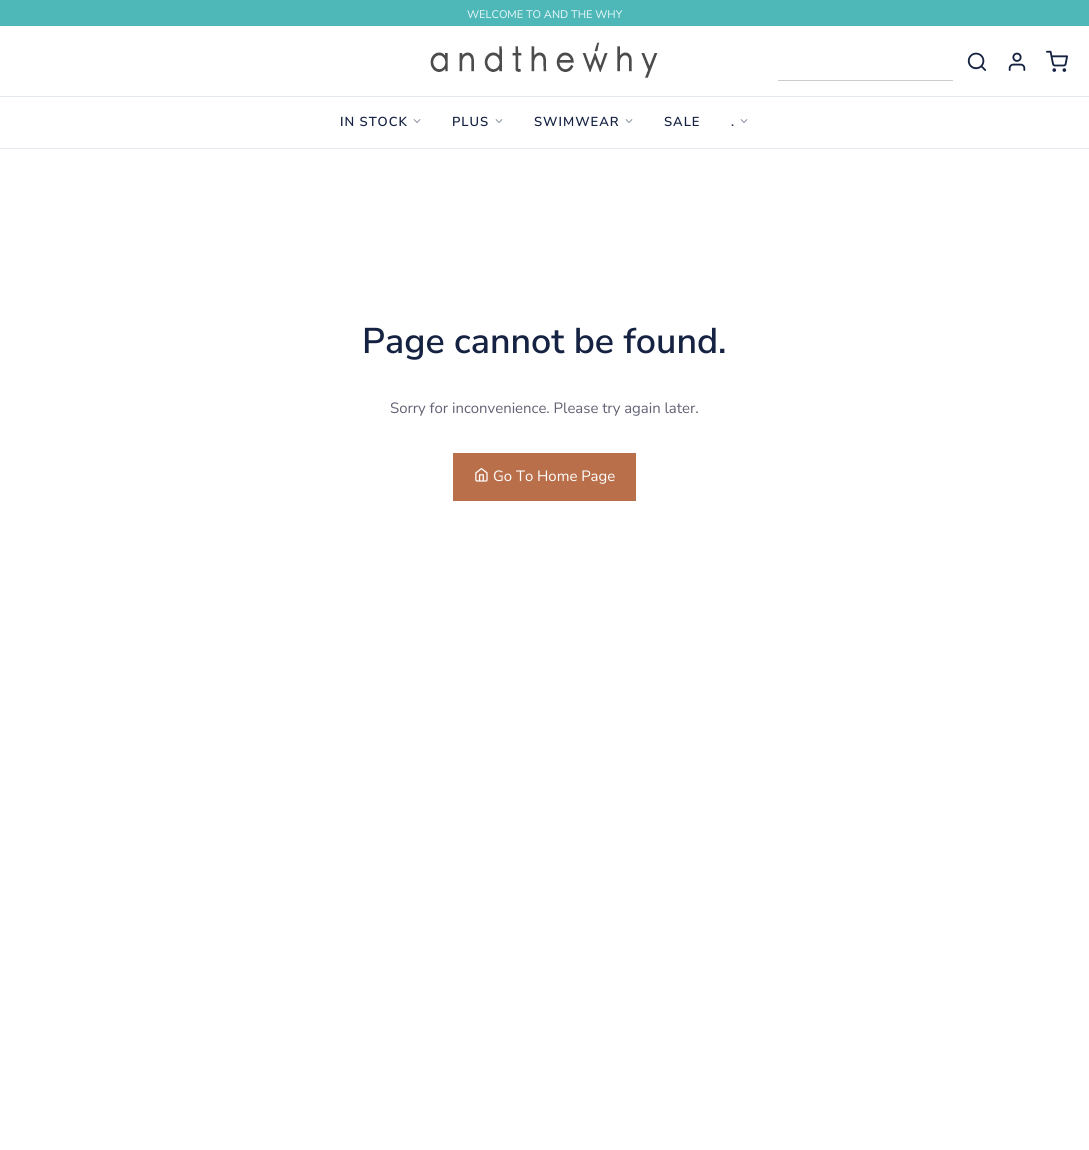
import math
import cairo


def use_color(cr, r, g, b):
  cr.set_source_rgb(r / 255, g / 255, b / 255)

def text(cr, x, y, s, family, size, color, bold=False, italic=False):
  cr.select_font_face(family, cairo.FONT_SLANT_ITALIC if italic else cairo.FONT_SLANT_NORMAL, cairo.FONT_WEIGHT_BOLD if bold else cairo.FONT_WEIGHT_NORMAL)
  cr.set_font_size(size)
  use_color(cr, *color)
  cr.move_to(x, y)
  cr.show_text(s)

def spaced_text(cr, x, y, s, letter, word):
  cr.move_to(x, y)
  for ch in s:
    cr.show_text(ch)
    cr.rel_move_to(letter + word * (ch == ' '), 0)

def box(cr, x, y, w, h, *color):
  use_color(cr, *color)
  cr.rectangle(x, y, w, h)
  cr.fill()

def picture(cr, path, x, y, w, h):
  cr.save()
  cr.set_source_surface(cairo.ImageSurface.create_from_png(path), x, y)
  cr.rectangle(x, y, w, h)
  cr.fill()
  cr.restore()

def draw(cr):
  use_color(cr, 255, 255, 255)
  cr.paint()
  box(cr, 0, 0, 1089, 26, 78, 184, 185)
  box(cr, 0, 96, 1089, 1, 227, 233, 239)
  picture(cr, "img_01.png", 430, 42, 228, 36)
  picture(cr, "img_02.png", 967, 52, 20, 19)
  box(cr, 778, 80, 175, 1, 204, 204, 204)
  picture(cr, "img_03.png", 1008, 52, 18, 19)
  picture(cr, "img_04.png", 1046, 50, 22, 22)
  box(cr, 0, 148, 1089, 1, 227, 233, 239)
  picture(cr, "img_05.png", 413, 119, 8, 4)
  picture(cr, "img_05.png", 495, 119, 8, 4)
  picture(cr, "img_05.png", 625, 119, 8, 4)
  picture(cr, "img_05.png", 740, 119, 8, 4)
  box(cr, 453, 453, 183, 48, 185, 111, 74)
  picture(cr, "img_06.png", 475, 468, 13, 14)
  text(cr, 467, 18, "WELCOME TO AND THE WHY", "Nunito Sans", 11, (237, 248, 248))
  cr.select_font_face("Nunito Sans SemiBold")
  cr.set_font_size(13)
  use_color(cr, 21, 34, 66)
  spaced_text(cr, 340, 126, "IN STOCK", 1, 0)
  spaced_text(cr, 452, 126, "PLUS", 1, 0)
  spaced_text(cr, 534, 126, "SWIMWEAR", 1, 0)
  spaced_text(cr, 664, 126, "SALE", 1, 0)
  spaced_text(cr, 731, 126, ".", 1, 0)
  text(cr, 362, 353, "Page cannot be found.", "Nunito Sans SemiBold", 35.75, (21, 34, 66))
  text(cr, 390, 413, "Sorry for inconvenience. Please try again later.", "Nunito Sans", 14.9, (97, 97, 116))
  text(cr, 493, 481, "Go To Home Page", "Nunito Sans", 14.9, (255, 255, 255))


surface = cairo.ImageSurface(cairo.FORMAT_RGB24, 1089, 1150)
cr = cairo.Context(surface)
options = cairo.FontOptions()
options.set_hint_metrics(cairo.HINT_METRICS_OFF)
options.set_hint_style(cairo.HINT_STYLE_NONE)
cr.set_font_options(options)
cr.set_miter_limit(4)
draw(cr)
surface.write_to_png("out.png")
